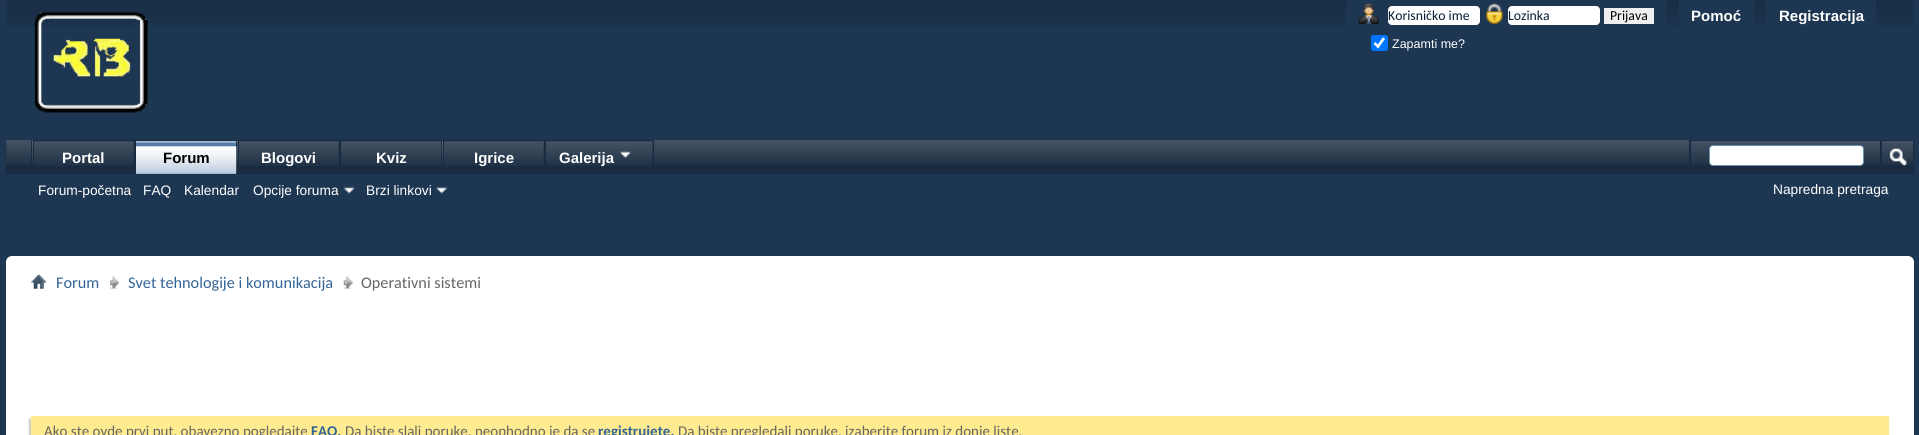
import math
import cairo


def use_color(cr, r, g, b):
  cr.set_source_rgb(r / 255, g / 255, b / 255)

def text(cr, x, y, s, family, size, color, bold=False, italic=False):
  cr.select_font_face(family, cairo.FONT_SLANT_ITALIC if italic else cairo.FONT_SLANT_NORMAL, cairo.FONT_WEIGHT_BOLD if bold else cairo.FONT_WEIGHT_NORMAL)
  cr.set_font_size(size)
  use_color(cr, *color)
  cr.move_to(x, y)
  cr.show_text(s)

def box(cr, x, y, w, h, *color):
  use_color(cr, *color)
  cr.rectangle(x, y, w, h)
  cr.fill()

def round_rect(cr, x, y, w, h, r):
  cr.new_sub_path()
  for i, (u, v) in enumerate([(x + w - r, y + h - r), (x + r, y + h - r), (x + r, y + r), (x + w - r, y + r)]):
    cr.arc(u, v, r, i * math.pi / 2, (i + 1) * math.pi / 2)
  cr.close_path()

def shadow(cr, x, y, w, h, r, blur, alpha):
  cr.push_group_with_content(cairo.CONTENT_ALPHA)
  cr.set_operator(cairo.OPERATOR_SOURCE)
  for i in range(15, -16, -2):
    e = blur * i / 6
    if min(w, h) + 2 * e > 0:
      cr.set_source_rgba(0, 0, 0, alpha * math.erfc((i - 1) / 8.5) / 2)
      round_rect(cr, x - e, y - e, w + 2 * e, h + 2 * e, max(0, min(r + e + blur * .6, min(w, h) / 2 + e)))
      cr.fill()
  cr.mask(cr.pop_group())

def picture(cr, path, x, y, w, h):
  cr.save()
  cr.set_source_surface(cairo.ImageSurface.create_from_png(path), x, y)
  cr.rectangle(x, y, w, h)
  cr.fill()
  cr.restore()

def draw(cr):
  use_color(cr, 29, 54, 82)
  cr.paint()
  picture(cr, "img_01.png", 6, 0, 1908, 26)
  picture(cr, "img_02.png", 34, 12, 114, 101)
  use_color(cr, 29, 54, 82)
  cr.new_path()
  cr.move_to(1346, 0)
  cr.line_to(1666, 0)
  cr.line_to(1666, 27)
  cr.curve_to(1666, 30.5, 1663.5, 33, 1660, 33)
  cr.line_to(1352, 33)
  cr.curve_to(1348.5, 33, 1346, 30.5, 1346, 27)
  cr.close_path()
  cr.fill()
  picture(cr, "img_03.png", 1358, 3, 21, 21)
  use_color(cr, 255, 255, 255)
  round_rect(cr, 1388, 6, 92, 19, 4)
  cr.fill()
  picture(cr, "img_04.png", 1486, 3, 17, 21)
  round_rect(cr, 1508, 6, 92, 19, 4)
  cr.fill()
  box(cr, 1604, 8, 50, 16, 239, 239, 239)
  use_color(cr, 0, 117, 255)
  round_rect(cr, 1371, 35, 17, 16, 2.5)
  cr.fill()
  cr.new_path()
  cr.move_to(1374.5, 43)
  cr.line_to(1378, 46.5)
  cr.line_to(1384, 38)
  use_color(cr, 255, 255, 255)
  cr.set_line_width(2.6)
  cr.stroke()
  use_color(cr, 29, 54, 82)
  cr.new_path()
  cr.move_to(1679, 0)
  cr.line_to(1754, 0)
  cr.line_to(1754, 27)
  cr.curve_to(1754, 30.5, 1751.5, 33, 1748, 33)
  cr.line_to(1685, 33)
  cr.curve_to(1681.5, 33, 1679, 30.5, 1679, 27)
  cr.close_path()
  cr.fill()
  cr.new_path()
  cr.move_to(1766, 0)
  cr.line_to(1876, 0)
  cr.line_to(1876, 27)
  cr.curve_to(1876, 30.5, 1873.5, 33, 1870, 33)
  cr.line_to(1772, 33)
  cr.curve_to(1768.5, 33, 1766, 30.5, 1766, 27)
  cr.close_path()
  cr.fill()
  box(cr, 6, 140, 1908, 33, 25, 43, 64)
  picture(cr, "img_05.png", 6, 140, 1907, 25)
  box(cr, 236, 140, 1, 33, 25, 43, 64)
  box(cr, 134, 140, 1, 34, 25, 43, 64)
  box(cr, 31, 140, 1, 34, 25, 43, 64)
  box(cr, 34, 140, 100, 25, 25, 43, 64)
  picture(cr, "img_09.png", 32, 141, 102, 25)
  box(cr, 33, 140, 1, 34, 25, 43, 64)
  box(cr, 339, 140, 2, 34, 25, 43, 64)
  box(cr, 239, 140, 100, 25, 25, 43, 64)
  picture(cr, "img_09.png", 237, 141, 102, 25)
  box(cr, 238, 140, 1, 34, 25, 43, 64)
  box(cr, 441, 140, 1, 34, 25, 43, 64)
  box(cr, 544, 140, 1, 34, 25, 43, 64)
  box(cr, 444, 140, 100, 25, 25, 43, 64)
  picture(cr, "img_09.png", 442, 141, 102, 25)
  box(cr, 443, 140, 1, 34, 25, 43, 64)
  box(cr, 6, 173, 1908, 1, 25, 43, 64)
  box(cr, 136, 141, 100, 33, 87, 125, 169)
  picture(cr, "img_06.png", 136, 141, 101, 33)
  box(cr, 135, 140, 101, 1, 25, 43, 64)
  box(cr, 135, 140, 1, 25, 25, 43, 64)
  picture(cr, "img_07.png", 343, 186, 12, 8)
  picture(cr, "img_08.png", 436, 186, 12, 8)
  box(cr, 341, 140, 100, 25, 25, 43, 64)
  picture(cr, "img_10.png", 341, 141, 101, 25)
  box(cr, 545, 140, 109, 25, 25, 43, 64)
  picture(cr, "img_11.png", 546, 141, 107, 25)
  picture(cr, "img_12.png", 620, 151, 11, 7)
  box(cr, 1689, 140, 1, 33, 25, 43, 64)
  box(cr, 1690, 140, 190, 1, 25, 43, 64)
  box(cr, 1690, 140, 1, 33, 25, 43, 64)
  use_color(cr, 255, 255, 255)
  round_rect(cr, 1709.5, 145.5, 154, 20, 3.5)
  cr.fill_preserve()
  use_color(cr, 107, 145, 171)
  cr.set_line_width(1)
  cr.stroke()
  box(cr, 1880, 140, 1, 33, 25, 43, 64)
  box(cr, 1881, 140, 32, 1, 25, 43, 64)
  box(cr, 1881, 140, 1, 33, 25, 43, 64)
  picture(cr, "img_13.png", 1889, 148, 18, 19)
  use_color(cr, 255, 255, 255)
  round_rect(cr, 6, 256, 1908, 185, 6)
  cr.fill()
  picture(cr, "img_14.png", 31, 274, 16, 15)
  picture(cr, "img_15.png", 110, 276, 9, 13)
  picture(cr, "img_16.png", 343, 276, 10, 13)
  use_color(cr, 200, 200, 200)
  shadow(cr, 29, 419, 1857, 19, 0, 1, 1)
  box(cr, 31, 416, 1858, 19, 255, 235, 144)
  text(cr, 1388, 20, "Korisničko ime", "Carlito", 13.75, (9, 30, 53))
  text(cr, 1508, 20, "Lozinka", "Carlito", 13.75, (9, 30, 53))
  text(cr, 1610, 20, "Prijava", "Carlito", 13.75, (0, 0, 0))
  text(cr, 1392, 48, "Zapamti me?", "Liberation Sans", 12.5, (255, 255, 255))
  text(cr, 1691, 21, "Pomoć", "Liberation Sans", 15, (255, 255, 255), bold=True)
  text(cr, 1779, 21, "Registracija", "Liberation Sans", 15, (255, 255, 255), bold=True)
  text(cr, 163, 163, "Forum", "Liberation Sans", 15, (0, 0, 0), bold=True)
  text(cr, 38, 195, "Forum-početna", "Liberation Sans", 13.75, (255, 255, 255))
  text(cr, 143, 195, "FAQ", "Liberation Sans", 13.75, (255, 255, 255))
  text(cr, 184, 195, "Kalendar", "Liberation Sans", 13.75, (255, 255, 255))
  text(cr, 253, 195, "Opcije foruma", "Liberation Sans", 13.75, (255, 255, 255))
  text(cr, 366, 195, "Brzi linkovi", "Liberation Sans", 13.75, (255, 255, 255))
  text(cr, 62, 163, "Portal", "Liberation Sans", 15, (255, 255, 255), bold=True)
  text(cr, 261, 163, "Blogovi", "Liberation Sans", 15, (255, 255, 255), bold=True)
  text(cr, 376, 163, "Kviz", "Liberation Sans", 15, (255, 255, 255), bold=True)
  text(cr, 474, 163, "Igrice", "Liberation Sans", 15, (255, 255, 255), bold=True)
  text(cr, 559, 163, "Galerija", "Liberation Sans", 15, (255, 255, 255), bold=True)
  text(cr, 1773, 194, "Napredna pretraga", "Liberation Sans", 13.75, (255, 255, 255))
  text(cr, 56, 288, "Forum", "Carlito", 16.25, (51, 101, 153))
  text(cr, 128, 288, "Svet tehnologije i komunikacija", "Carlito", 16.25, (51, 101, 153))
  text(cr, 361, 288, "Operativni sistemi", "Carlito", 16.25, (102, 102, 102))
  text(cr, 44, 436, "Ako ste ovde prvi put, obavezno pogledajte", "Carlito", 15, (102, 102, 102))
  text(cr, 311, 436, "FAQ.", "Carlito", 15, (51, 101, 153), bold=True)
  text(cr, 345, 436, "Da biste slali poruke, neophodno je da se", "Carlito", 15, (102, 102, 102))
  text(cr, 598, 436, "registrujete.", "Carlito", 15, (51, 101, 153), bold=True)
  text(cr, 678, 436, "Da biste pregledali poruke, izaberite forum iz donje liste.", "Carlito", 15, (102, 102, 102))


surface = cairo.ImageSurface(cairo.FORMAT_RGB24, 1919, 435)
cr = cairo.Context(surface)
options = cairo.FontOptions()
options.set_hint_metrics(cairo.HINT_METRICS_OFF)
options.set_hint_style(cairo.HINT_STYLE_NONE)
cr.set_font_options(options)
cr.set_miter_limit(4)
draw(cr)
surface.write_to_png("out.png")
